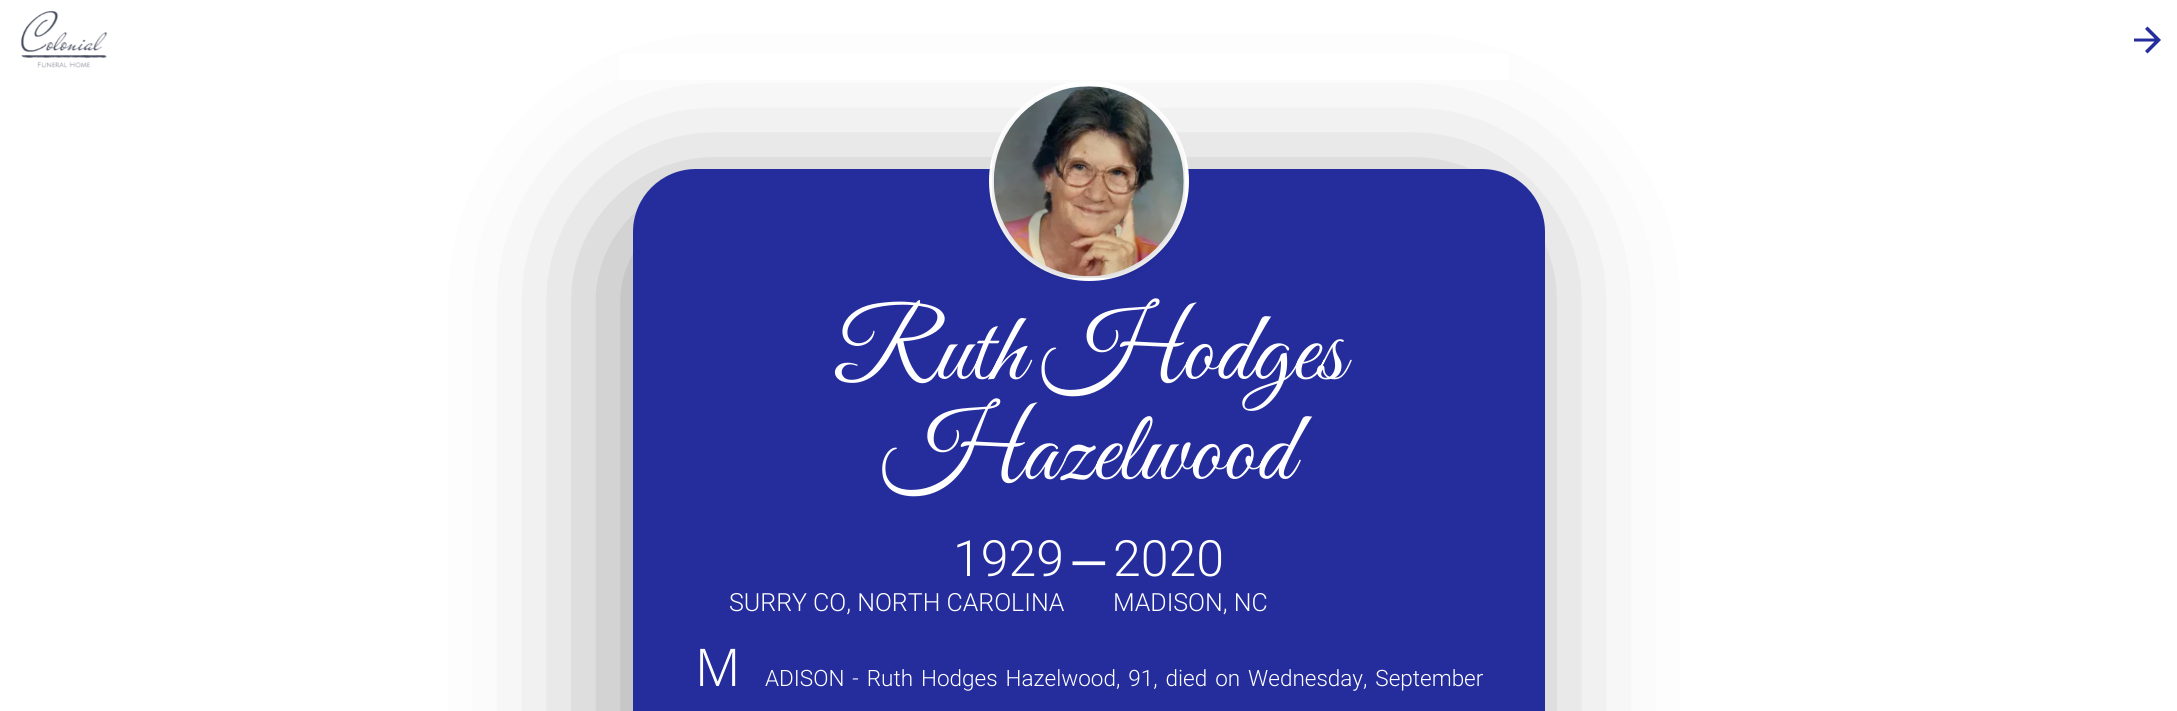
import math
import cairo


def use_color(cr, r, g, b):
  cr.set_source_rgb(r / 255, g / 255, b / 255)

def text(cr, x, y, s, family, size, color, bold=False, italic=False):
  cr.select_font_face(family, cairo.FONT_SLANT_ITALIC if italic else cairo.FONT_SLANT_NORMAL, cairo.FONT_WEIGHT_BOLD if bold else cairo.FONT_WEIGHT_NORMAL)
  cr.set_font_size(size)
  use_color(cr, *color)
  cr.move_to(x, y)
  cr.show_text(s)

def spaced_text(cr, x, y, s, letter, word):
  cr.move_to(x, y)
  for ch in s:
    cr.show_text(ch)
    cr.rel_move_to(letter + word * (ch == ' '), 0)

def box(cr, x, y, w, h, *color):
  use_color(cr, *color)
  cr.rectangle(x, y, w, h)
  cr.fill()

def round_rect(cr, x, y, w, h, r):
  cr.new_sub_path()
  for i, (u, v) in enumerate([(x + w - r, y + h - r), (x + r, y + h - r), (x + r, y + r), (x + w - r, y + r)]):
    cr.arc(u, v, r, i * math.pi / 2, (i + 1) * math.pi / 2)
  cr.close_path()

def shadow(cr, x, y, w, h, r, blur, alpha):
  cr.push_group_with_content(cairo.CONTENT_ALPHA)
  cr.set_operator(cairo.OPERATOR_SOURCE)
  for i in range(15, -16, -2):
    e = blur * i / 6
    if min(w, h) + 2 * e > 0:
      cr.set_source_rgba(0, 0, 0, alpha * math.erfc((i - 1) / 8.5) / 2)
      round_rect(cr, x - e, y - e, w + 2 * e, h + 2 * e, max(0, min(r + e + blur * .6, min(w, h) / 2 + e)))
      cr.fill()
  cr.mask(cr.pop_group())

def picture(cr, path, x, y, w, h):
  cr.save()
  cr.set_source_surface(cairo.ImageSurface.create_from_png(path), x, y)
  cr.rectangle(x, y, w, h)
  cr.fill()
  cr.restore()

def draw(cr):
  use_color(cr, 255, 255, 255)
  cr.paint()
  use_color(cr, 0, 0, 0)
  shadow(cr, 608, 194, 912, 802, 63, 74, 0.35)
  box(cr, 619, 53, 890, 27, 255, 255, 255)
  picture(cr, "img_01.png", 20, 10, 88, 58)
  use_color(cr, 37, 45, 157)
  cr.new_path()
  cr.move_to(2147.5, 26.5)
  cr.line_to(2161, 40)
  cr.line_to(2147.5, 53.5)
  cr.line_to(2145, 51)
  cr.line_to(2154.5, 41.5)
  cr.line_to(2134, 41.5)
  cr.line_to(2134, 38.5)
  cr.line_to(2154.5, 38.5)
  cr.line_to(2145, 29)
  cr.close_path()
  cr.fill()
  round_rect(cr, 633, 169, 912, 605, 63)
  cr.fill()
  use_color(cr, 255, 255, 255)
  cr.arc(1089, 181, 97.5, 0, 2 * math.pi)
  cr.fill_preserve()
  cr.set_line_width(5)
  cr.stroke()
  picture(cr, "img_02.png", 992, 86, 193, 192)
  text(cr, 833, 379, "Ruth Hodges", "Great Vibes", 100, (255, 255, 255))
  text(cr, 883, 479, "Hazelwood", "Great Vibes", 100, (255, 255, 255))
  text(cr, 953, 576, "1929", "Roboto Light", 50, (255, 255, 255))
  text(cr, 729, 611, "SURRY CO, NORTH CAROLINA", "Roboto Light", 25, (255, 255, 255))
  text(cr, 1069, 581, "—", "Roboto", 50, (255, 255, 255))
  text(cr, 1113, 576, "2020", "Roboto Light", 50, (255, 255, 255))
  text(cr, 1113, 611, "MADISON, NC", "Roboto Light", 25, (255, 255, 255))
  text(cr, 695, 686, "M", "Noto Sans Light", 52, (255, 255, 255))
  cr.select_font_face("Roboto Light")
  cr.set_font_size(22.5)
  spaced_text(cr, 765, 686, "ADISON - Ruth Hodges Hazelwood, 91, died on Wednesday, September", 0, 2.5)


surface = cairo.ImageSurface(cairo.FORMAT_RGB24, 2177, 711)
cr = cairo.Context(surface)
options = cairo.FontOptions()
options.set_hint_metrics(cairo.HINT_METRICS_OFF)
options.set_hint_style(cairo.HINT_STYLE_NONE)
cr.set_font_options(options)
cr.set_miter_limit(4)
draw(cr)
surface.write_to_png("out.png")
